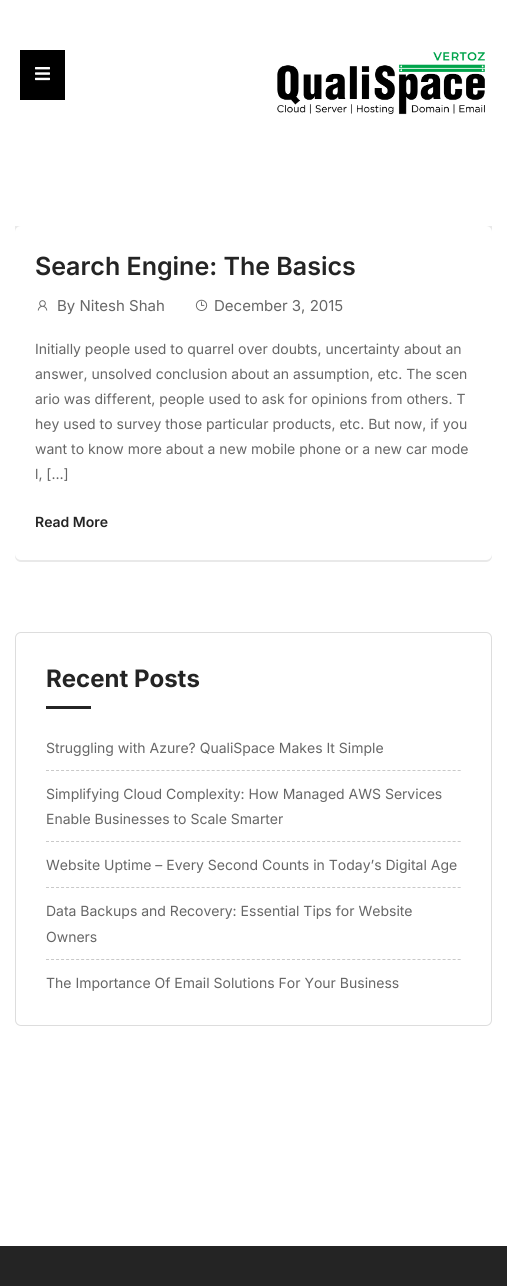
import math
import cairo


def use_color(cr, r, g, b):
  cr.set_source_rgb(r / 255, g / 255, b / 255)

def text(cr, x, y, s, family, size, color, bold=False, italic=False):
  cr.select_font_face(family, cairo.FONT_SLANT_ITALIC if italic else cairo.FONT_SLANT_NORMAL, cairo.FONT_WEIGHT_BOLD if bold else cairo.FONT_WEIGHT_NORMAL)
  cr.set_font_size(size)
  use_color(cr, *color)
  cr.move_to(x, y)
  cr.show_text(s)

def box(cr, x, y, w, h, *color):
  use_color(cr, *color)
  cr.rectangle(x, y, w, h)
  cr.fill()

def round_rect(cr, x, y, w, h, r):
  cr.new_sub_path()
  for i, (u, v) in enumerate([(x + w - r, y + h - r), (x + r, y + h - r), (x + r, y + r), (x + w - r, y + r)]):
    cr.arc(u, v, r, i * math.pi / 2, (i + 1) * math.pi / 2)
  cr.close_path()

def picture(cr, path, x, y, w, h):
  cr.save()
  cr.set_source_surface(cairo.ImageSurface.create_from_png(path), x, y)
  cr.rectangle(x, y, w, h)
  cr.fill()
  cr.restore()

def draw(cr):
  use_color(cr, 255, 255, 255)
  cr.paint()
  box(cr, 20, 50, 45, 50, 0, 0, 0)
  picture(cr, "img_01.png", 35, 67, 15, 14)
  picture(cr, "img_02.png", 277, 52, 208, 63)
  use_color(cr, 233, 233, 233)
  round_rect(cr, 15, 196, 477, 366, 6)
  cr.fill()
  box(cr, 15, 196, 477, 30, 255, 255, 255)
  round_rect(cr, 15, 226, 477, 334, 6)
  cr.fill()
  picture(cr, "img_03.png", 37, 300, 11, 11)
  picture(cr, "img_04.png", 195, 299, 13, 12)
  round_rect(cr, 15.5, 632.5, 476, 393, 5.5)
  use_color(cr, 221, 221, 221)
  cr.set_line_width(1)
  cr.stroke()
  box(cr, 46, 706, 45, 3, 36, 36, 36)
  cr.new_path()
  cr.move_to(46, 770.5)
  cr.line_to(461, 770.5)
  use_color(cr, 201, 201, 201)
  cr.set_dash([3, 2.02])
  cr.stroke()
  cr.new_path()
  cr.move_to(46, 841.5)
  cr.line_to(461, 841.5)
  cr.stroke()
  cr.new_path()
  cr.move_to(46, 887.5)
  cr.line_to(461, 887.5)
  cr.stroke()
  cr.new_path()
  cr.move_to(46, 959.5)
  cr.line_to(461, 959.5)
  cr.stroke()
  box(cr, 0, 1246, 507, 40, 36, 36, 36)
  text(cr, 35, 275, "Search Engine: The Basics", "Inter SemiBold", 25, (36, 36, 36))
  text(cr, 57, 311, "By Nitesh Shah", "Inter", 15, (102, 102, 102))
  text(cr, 214, 311, "December 3, 2015", "Inter", 15, (102, 102, 102))
  text(cr, 35, 354, "Initially people used to quarrel over doubts, uncertainty about an", "Inter", 14, (102, 102, 102))
  text(cr, 35, 379, "answer, unsolved conclusion about an assumption, etc. The scen", "Inter", 14, (102, 102, 102))
  text(cr, 35, 404, "ario was different, people used to ask for opinions from others. T", "Inter", 14, (102, 102, 102))
  text(cr, 35, 429, "hey used to survey those particular products, etc. But now, if you", "Inter", 14, (102, 102, 102))
  text(cr, 35, 454, "want to know more about a new mobile phone or a new car mode", "Inter", 14, (102, 102, 102))
  text(cr, 35, 479, "l, […]", "Inter", 14, (102, 102, 102))
  text(cr, 35, 527, "Read More", "Inter SemiBold", 14, (36, 36, 36))
  text(cr, 46, 687, "Recent Posts", "Inter", 24, (36, 36, 36), bold=True)
  text(cr, 46, 753, "Struggling with Azure? QualiSpace Makes It Simple", "Inter", 14, (102, 102, 102))
  text(cr, 46, 799, "Simplifying Cloud Complexity: How Managed AWS Services", "Inter", 14, (102, 102, 102))
  text(cr, 46, 824, "Enable Businesses to Scale Smarter", "Inter", 14, (102, 102, 102))
  text(cr, 46, 870, "Website Uptime – Every Second Counts in Today’s Digital Age", "Inter", 14, (102, 102, 102))
  text(cr, 46, 916, "Data Backups and Recovery: Essential Tips for Website", "Inter", 14, (102, 102, 102))
  text(cr, 46, 942, "Owners", "Inter", 14, (102, 102, 102))
  text(cr, 46, 988, "The Importance Of Email Solutions For Your Business", "Inter", 14, (102, 102, 102))


surface = cairo.ImageSurface(cairo.FORMAT_RGB24, 507, 1286)
cr = cairo.Context(surface)
options = cairo.FontOptions()
options.set_hint_metrics(cairo.HINT_METRICS_OFF)
options.set_hint_style(cairo.HINT_STYLE_NONE)
cr.set_font_options(options)
cr.set_miter_limit(4)
draw(cr)
surface.write_to_png("out.png")
